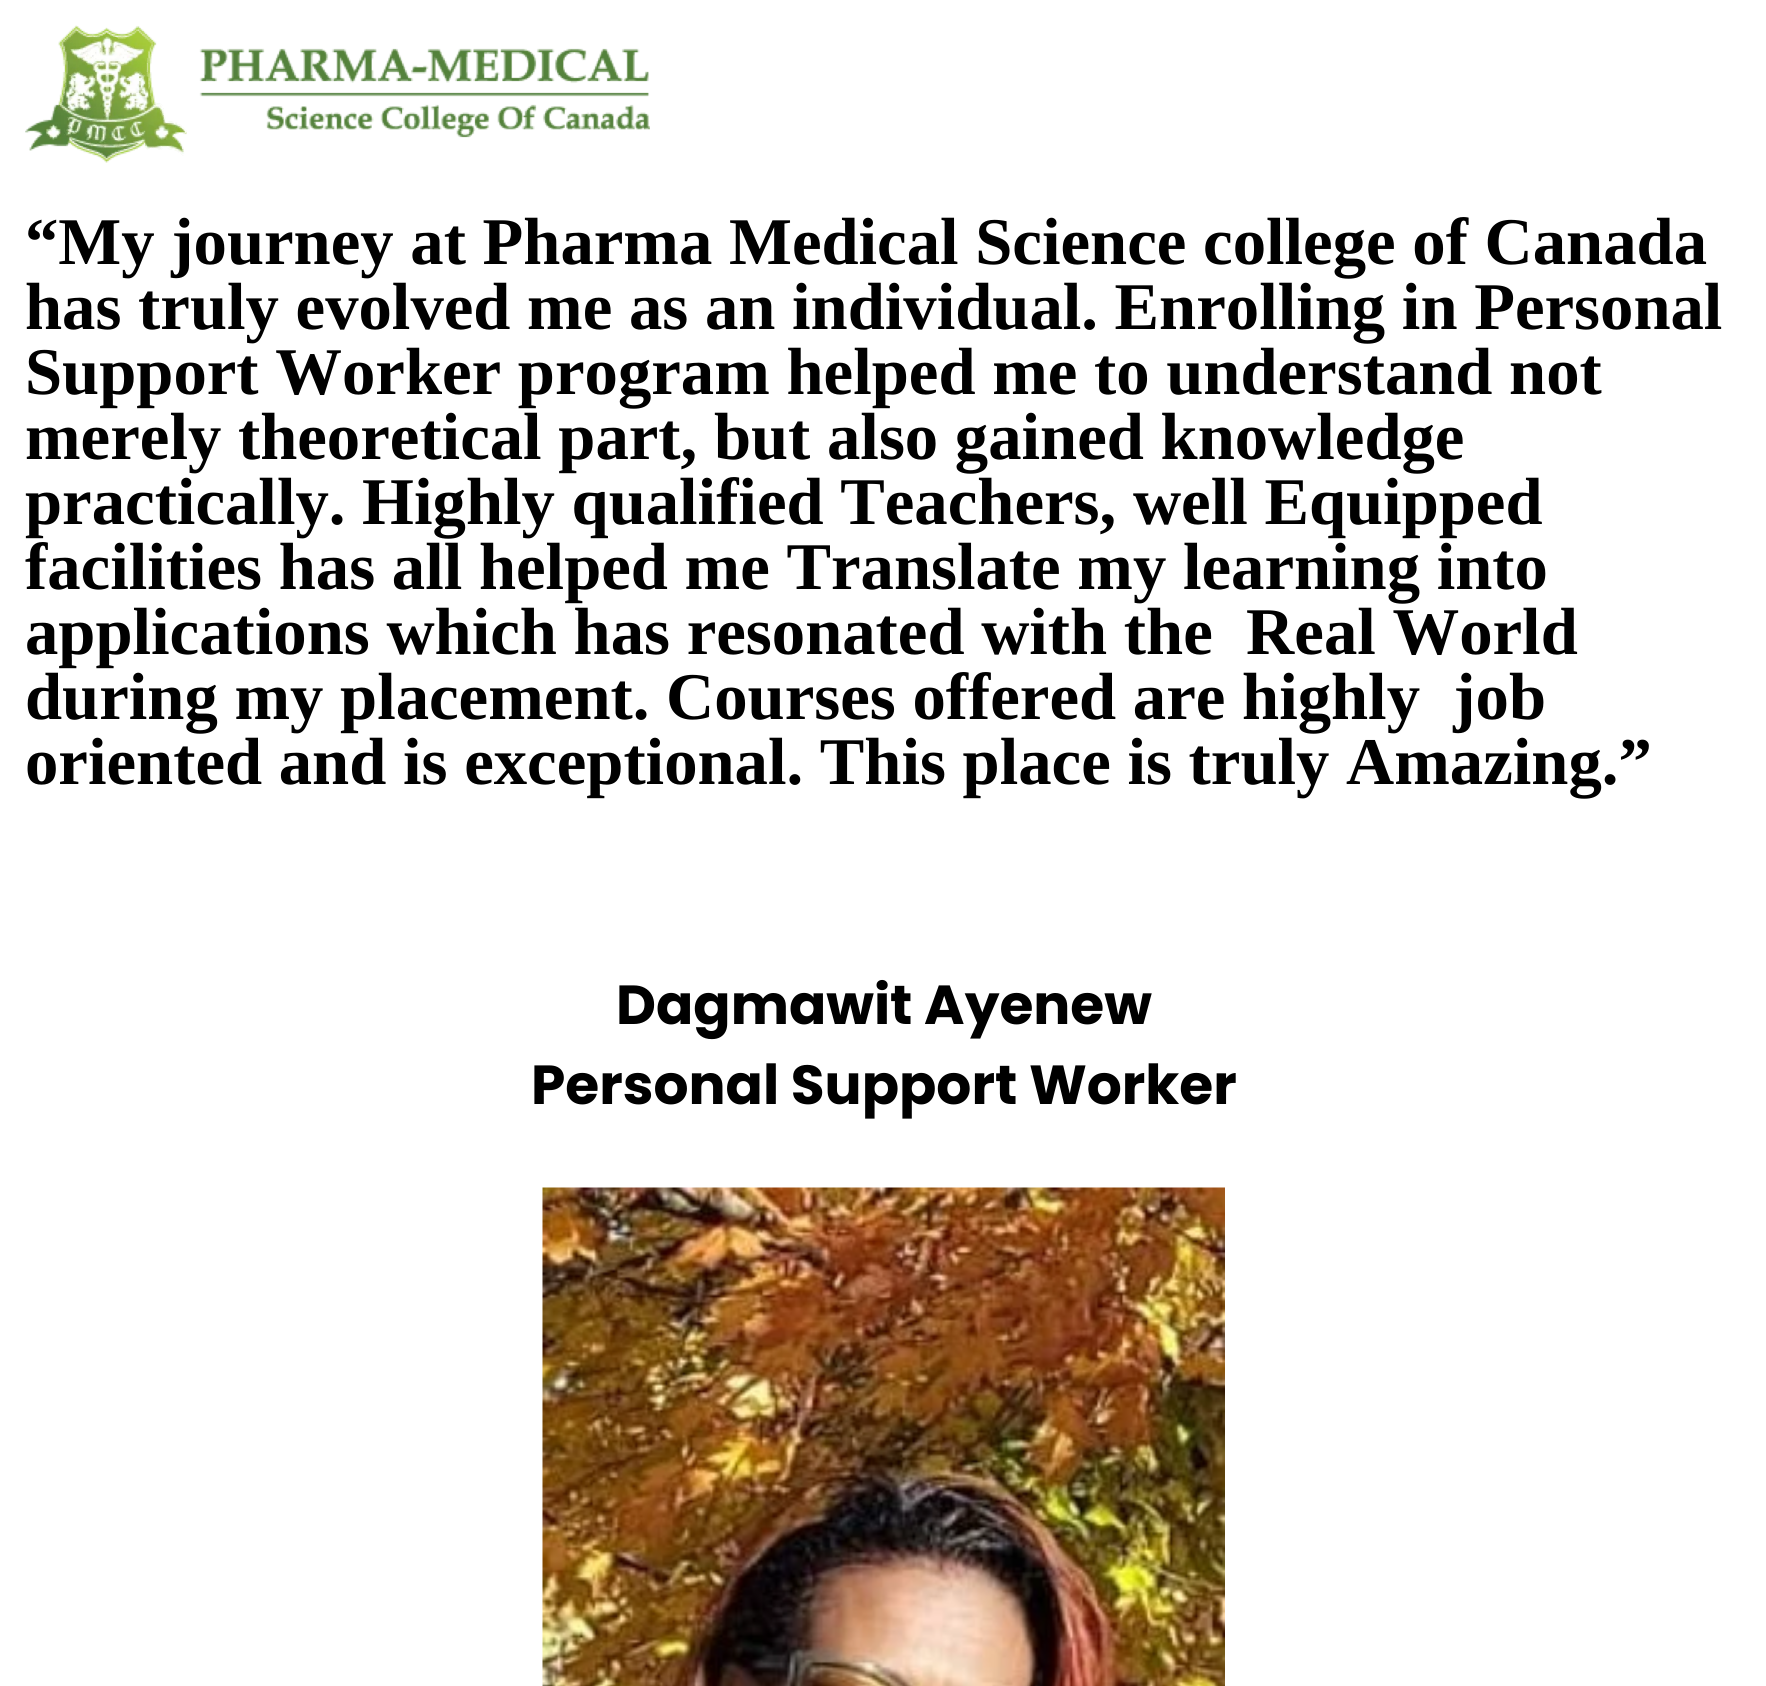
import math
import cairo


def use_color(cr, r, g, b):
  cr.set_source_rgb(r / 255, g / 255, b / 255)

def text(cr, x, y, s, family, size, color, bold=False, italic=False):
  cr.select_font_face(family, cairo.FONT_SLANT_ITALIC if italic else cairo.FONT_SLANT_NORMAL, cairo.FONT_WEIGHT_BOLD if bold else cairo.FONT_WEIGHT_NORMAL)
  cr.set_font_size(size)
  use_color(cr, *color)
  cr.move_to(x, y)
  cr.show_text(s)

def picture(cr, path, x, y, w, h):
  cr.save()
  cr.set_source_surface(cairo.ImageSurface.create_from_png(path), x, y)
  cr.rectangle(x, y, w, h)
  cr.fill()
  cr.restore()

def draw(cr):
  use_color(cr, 255, 255, 255)
  cr.paint()
  picture(cr, "img_01.png", 25, 25, 625, 138)
  picture(cr, "img_02.png", 542, 1187, 683, 499)
  text(cr, 25, 264, "“My journey at Pharma Medical Science college of Canada", "Liberation Serif", 66.7, (0, 0, 0), bold=True)
  text(cr, 25, 329, "has truly evolved me as an individual. Enrolling in Personal", "Liberation Serif", 66.7, (0, 0, 0), bold=True)
  text(cr, 25, 394, "Support Worker program helped me to understand not", "Liberation Serif", 66.7, (0, 0, 0), bold=True)
  text(cr, 25, 459, "merely theoretical part, but also gained knowledge", "Liberation Serif", 66.7, (0, 0, 0), bold=True)
  text(cr, 25, 524, "practically. Highly qualified Teachers, well Equipped", "Liberation Serif", 66.7, (0, 0, 0), bold=True)
  text(cr, 25, 589, "facilities has all helped me Translate my learning into", "Liberation Serif", 66.7, (0, 0, 0), bold=True)
  text(cr, 25, 654, "applications which has resonated with the  Real World", "Liberation Serif", 66.7, (0, 0, 0), bold=True)
  text(cr, 25, 719, "during my placement. Courses offered are highly  job", "Liberation Serif", 66.7, (0, 0, 0), bold=True)
  text(cr, 25, 784, "oriented and is exceptional. This place is truly Amazing.”", "Liberation Serif", 66.7, (0, 0, 0), bold=True)
  text(cr, 616, 1024, "Dagmawit Ayenew", "Poppins", 55, (0, 0, 0), bold=True)
  text(cr, 531, 1104, "Personal Support Worker", "Poppins", 55, (0, 0, 0), bold=True)


surface = cairo.ImageSurface(cairo.FORMAT_RGB24, 1766, 1686)
cr = cairo.Context(surface)
options = cairo.FontOptions()
options.set_hint_metrics(cairo.HINT_METRICS_OFF)
options.set_hint_style(cairo.HINT_STYLE_NONE)
cr.set_font_options(options)
cr.set_miter_limit(4)
draw(cr)
surface.write_to_png("out.png")
